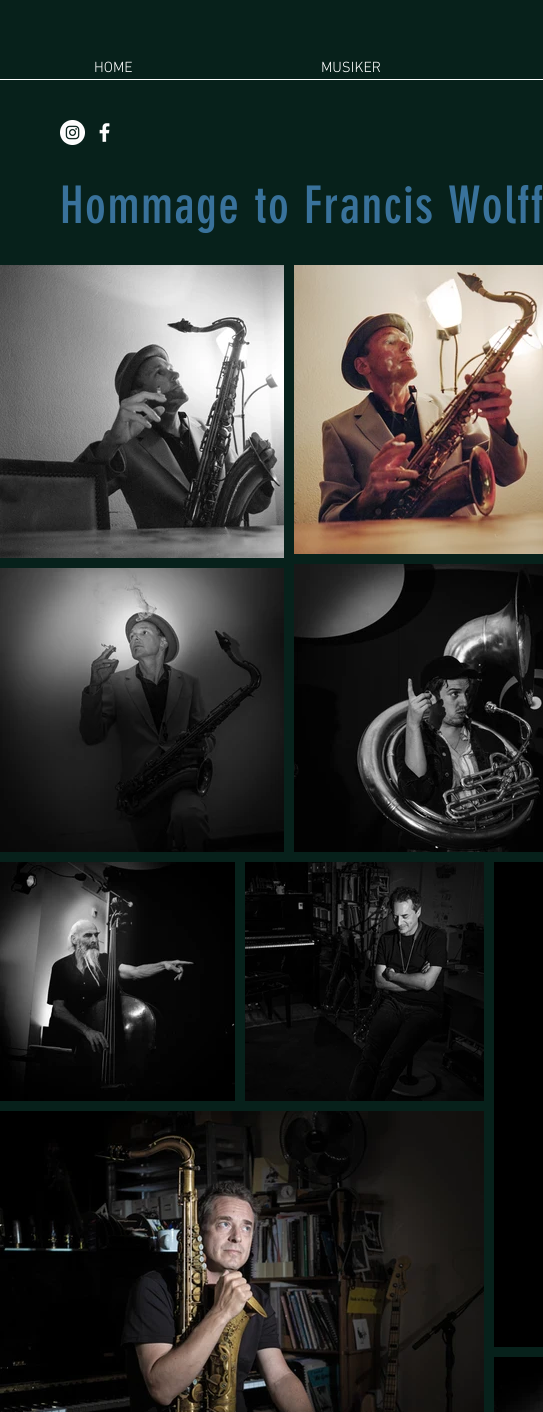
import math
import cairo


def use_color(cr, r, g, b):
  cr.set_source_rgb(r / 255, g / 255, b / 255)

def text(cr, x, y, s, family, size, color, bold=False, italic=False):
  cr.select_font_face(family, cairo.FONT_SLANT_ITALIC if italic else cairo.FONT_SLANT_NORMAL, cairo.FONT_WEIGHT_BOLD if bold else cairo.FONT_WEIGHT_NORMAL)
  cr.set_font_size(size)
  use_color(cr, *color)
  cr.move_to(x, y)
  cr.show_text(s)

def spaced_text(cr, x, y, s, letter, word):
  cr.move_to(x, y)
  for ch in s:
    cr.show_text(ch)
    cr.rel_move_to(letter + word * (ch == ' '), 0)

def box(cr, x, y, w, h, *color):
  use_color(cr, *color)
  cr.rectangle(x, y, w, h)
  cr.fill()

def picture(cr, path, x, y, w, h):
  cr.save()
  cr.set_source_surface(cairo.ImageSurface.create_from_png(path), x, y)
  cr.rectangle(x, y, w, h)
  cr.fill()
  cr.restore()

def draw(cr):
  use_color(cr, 7, 33, 27)
  cr.paint()
  box(cr, 0, 79, 543, 1, 255, 255, 255)
  picture(cr, "img_01.png", 60, 120, 25, 25)
  picture(cr, "img_02.png", 99, 123, 11, 19)
  picture(cr, "img_03.png", 0, 265, 284, 293)
  picture(cr, "img_04.png", 294, 265, 249, 289)
  picture(cr, "img_05.png", 0, 568, 284, 284)
  picture(cr, "img_06.png", 294, 564, 249, 288)
  picture(cr, "img_07.png", 0, 862, 235, 239)
  picture(cr, "img_08.png", 245, 862, 239, 239)
  box(cr, 494, 862, 49, 485, 0, 0, 0)
  picture(cr, "img_09.png", 0, 1111, 484, 301)
  picture(cr, "img_10.png", 494, 1357, 49, 55)
  text(cr, 94, 72, "HOME", "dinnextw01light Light", 15, (255, 255, 255))
  text(cr, 321, 72, "MUSIKER", "dinnextw01light Light", 15, (255, 255, 255))
  cr.select_font_face("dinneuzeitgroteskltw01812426")
  cr.set_font_size(51)
  use_color(cr, 57, 114, 155)
  spaced_text(cr, 60, 223, "Hommage to Francis Wolff", 1.5, 0)


surface = cairo.ImageSurface(cairo.FORMAT_RGB24, 543, 1412)
cr = cairo.Context(surface)
options = cairo.FontOptions()
options.set_hint_metrics(cairo.HINT_METRICS_OFF)
options.set_hint_style(cairo.HINT_STYLE_NONE)
cr.set_font_options(options)
cr.set_miter_limit(4)
draw(cr)
surface.write_to_png("out.png")
